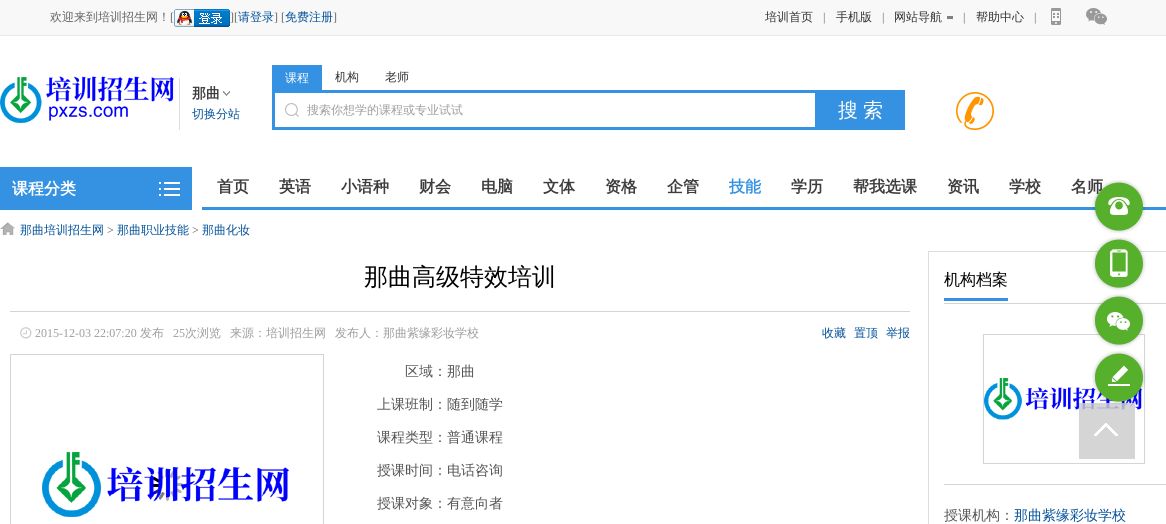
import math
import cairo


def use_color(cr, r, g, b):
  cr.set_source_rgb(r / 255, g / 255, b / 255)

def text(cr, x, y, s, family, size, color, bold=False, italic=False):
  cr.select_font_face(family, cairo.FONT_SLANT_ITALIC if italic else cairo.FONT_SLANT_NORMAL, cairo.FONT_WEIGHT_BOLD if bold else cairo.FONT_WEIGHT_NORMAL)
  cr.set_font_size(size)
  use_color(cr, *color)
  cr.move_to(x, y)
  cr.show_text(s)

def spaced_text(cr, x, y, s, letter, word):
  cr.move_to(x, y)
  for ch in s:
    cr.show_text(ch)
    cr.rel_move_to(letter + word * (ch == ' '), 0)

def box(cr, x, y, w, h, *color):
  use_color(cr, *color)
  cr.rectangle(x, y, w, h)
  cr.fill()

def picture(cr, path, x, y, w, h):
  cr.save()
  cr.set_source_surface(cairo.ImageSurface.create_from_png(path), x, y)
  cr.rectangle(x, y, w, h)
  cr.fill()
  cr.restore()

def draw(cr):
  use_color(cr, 255, 255, 255)
  cr.paint()
  box(cr, 0, 0, 1166, 35, 248, 248, 248)
  box(cr, 0, 35, 1166, 1, 232, 232, 232)
  picture(cr, "img_01.png", 174, 9, 56, 18)
  box(cr, 947, 16, 6, 3, 128, 128, 128)
  picture(cr, "img_02.png", 1051, 8, 10, 17)
  picture(cr, "img_03.png", 1086, 8, 21, 17)
  picture(cr, "img_04.png", 0, 76, 174, 47)
  box(cr, 179, 78, 1, 52, 221, 221, 221)
  picture(cr, "img_05.png", 223, 91, 7, 5)
  box(cr, 272, 65, 50, 25, 53, 146, 226)
  picture(cr, "img_06.png", 285, 103, 14, 14)
  box(cr, 272, 90, 543, 3, 53, 146, 226)
  box(cr, 272, 127, 543, 3, 53, 146, 226)
  box(cr, 272, 90, 3, 40, 53, 146, 226)
  box(cr, 815, 90, 90, 40, 53, 146, 226)
  picture(cr, "img_07.png", 956, 92, 38, 38)
  cr.rectangle(1, 168, 190, 41)
  cr.stroke()
  box(cr, 2, 169, 188, 39, 53, 146, 226)
  picture(cr, "img_08.png", 159, 182, 21, 14)
  box(cr, 202, 207, 964, 3, 53, 146, 226)
  picture(cr, "img_09.png", 0, 222, 15, 13)
  cr.rectangle(928.5, 251.5, 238, 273)
  use_color(cr, 221, 221, 221)
  cr.set_line_width(1)
  cr.stroke()
  picture(cr, "img_12.png", 1092, 237, 54, 54)
  picture(cr, "img_13.png", 1110, 249, 18, 28)
  box(cr, 944, 303, 222, 1, 212, 212, 212)
  cr.rectangle(983.5, 334.5, 161, 129)
  use_color(cr, 213, 213, 213)
  cr.stroke()
  picture(cr, "img_14.png", 1092, 294, 54, 54)
  picture(cr, "img_15.png", 1107, 312, 23, 19)
  picture(cr, "img_21.png", 984, 378, 158, 42)
  picture(cr, "img_22.png", 1079, 403, 56, 56)
  picture(cr, "img_16.png", 1092, 351, 54, 54)
  picture(cr, "img_17.png", 1108, 365, 22, 21)
  box(cr, 10, 311, 900, 1, 212, 212, 212)
  picture(cr, "img_18.png", 20, 327, 12, 12)
  cr.rectangle(10.5, 354.5, 313, 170)
  cr.stroke()
  picture(cr, "img_19.png", 153, 469, 30, 32)
  picture(cr, "img_20.png", 42, 452, 247, 65)
  box(cr, 944, 298, 64, 3, 53, 146, 226)
  box(cr, 944, 484, 222, 1, 212, 212, 212)
  text(cr, 50, 21, "欢迎来到培训招生网！", "WenQuanYi Zen Hei Medium", 12, (102, 102, 102))
  text(cr, 170, 21, "[", "Liberation Serif", 12, (102, 102, 102))
  text(cr, 230, 21, "][", "Liberation Serif", 12, (102, 102, 102))
  text(cr, 238, 21, "请登录", "WenQuanYi Zen Hei Medium", 12, (4, 82, 154))
  text(cr, 274, 21, "] [", "Liberation Serif", 12, (102, 102, 102))
  text(cr, 285, 21, "免费注册", "WenQuanYi Zen Hei Medium", 12, (4, 82, 154))
  text(cr, 333, 21, "]", "Liberation Serif", 12, (102, 102, 102))
  text(cr, 765, 21, "培训首页", "WenQuanYi Zen Hei Medium", 12, (51, 51, 51))
  text(cr, 823, 21, "|", "Liberation Serif", 12, (102, 102, 102))
  text(cr, 836, 21, "手机版", "WenQuanYi Zen Hei Medium", 12, (51, 51, 51))
  text(cr, 882, 21, "|", "Liberation Serif", 12, (102, 102, 102))
  text(cr, 894, 21, "网站导航", "WenQuanYi Zen Hei Medium", 12, (51, 51, 51))
  text(cr, 963, 21, "|", "Liberation Serif", 12, (102, 102, 102))
  text(cr, 976, 21, "帮助中心", "WenQuanYi Zen Hei Medium", 12, (51, 51, 51))
  text(cr, 1034, 21, "|", "Liberation Serif", 12, (102, 102, 102))
  text(cr, 192, 98, "那曲", "WenQuanYi Zen Hei", 14, (61, 61, 61), bold=True)
  text(cr, 192, 118, "切换分站", "WenQuanYi Zen Hei Medium", 12, (4, 82, 154))
  text(cr, 285, 82, "课程", "WenQuanYi Zen Hei Medium", 12, (255, 255, 255))
  text(cr, 335, 81, "机构", "WenQuanYi Zen Hei Medium", 12, (51, 51, 51))
  text(cr, 385, 81, "老师", "WenQuanYi Zen Hei Medium", 12, (51, 51, 51))
  text(cr, 307, 114, "搜索你想学的课程或专业试试", "WenQuanYi Zen Hei Medium", 12, (157, 157, 157))
  cr.set_font_size(20)
  use_color(cr, 255, 255, 255)
  spaced_text(cr, 838, 117, "搜 索", 0, -1)
  text(cr, 12, 194, "课程分类", "WenQuanYi Zen Hei", 16, (255, 255, 255), bold=True)
  text(cr, 217, 192, "首页", "WenQuanYi Zen Hei", 16, (61, 61, 61), bold=True)
  text(cr, 279, 192, "英语", "WenQuanYi Zen Hei", 16, (61, 61, 61), bold=True)
  text(cr, 341, 192, "小语种", "WenQuanYi Zen Hei", 16, (61, 61, 61), bold=True)
  text(cr, 419, 192, "财会", "WenQuanYi Zen Hei", 16, (61, 61, 61), bold=True)
  text(cr, 481, 192, "电脑", "WenQuanYi Zen Hei", 16, (61, 61, 61), bold=True)
  text(cr, 543, 192, "文体", "WenQuanYi Zen Hei", 16, (61, 61, 61), bold=True)
  text(cr, 605, 192, "资格", "WenQuanYi Zen Hei", 16, (61, 61, 61), bold=True)
  text(cr, 667, 192, "企管", "WenQuanYi Zen Hei", 16, (61, 61, 61), bold=True)
  text(cr, 729, 192, "技能", "WenQuanYi Zen Hei", 16, (53, 146, 226), bold=True)
  text(cr, 791, 192, "学历", "WenQuanYi Zen Hei", 16, (61, 61, 61), bold=True)
  text(cr, 853, 192, "帮我选课", "WenQuanYi Zen Hei", 16, (61, 61, 61), bold=True)
  text(cr, 947, 192, "资讯", "WenQuanYi Zen Hei", 16, (61, 61, 61), bold=True)
  text(cr, 1009, 192, "学校", "WenQuanYi Zen Hei", 16, (61, 61, 61), bold=True)
  text(cr, 1071, 192, "名师", "WenQuanYi Zen Hei", 16, (61, 61, 61), bold=True)
  text(cr, 20, 234, "那曲培训招生网", "WenQuanYi Zen Hei Medium", 12, (4, 82, 154))
  text(cr, 107, 234, ">", "Liberation Serif", 12, (85, 85, 85))
  text(cr, 117, 234, "那曲职业技能", "WenQuanYi Zen Hei Medium", 12, (4, 82, 154))
  text(cr, 192, 234, ">", "Liberation Serif", 12, (85, 85, 85))
  text(cr, 202, 234, "那曲化妆", "WenQuanYi Zen Hei Medium", 12, (4, 82, 154))
  picture(cr, "img_10.png", 1092, 180, 54, 54)
  picture(cr, "img_11.png", 1108, 197, 22, 18)
  text(cr, 364, 285, "那曲高级特效培训", "WenQuanYi Zen Hei Medium", 24, (0, 0, 0))
  text(cr, 35, 337, "2015-12-03 22:07:20", "Liberation Serif", 12, (157, 157, 157))
  text(cr, 140, 337, "发布", "WenQuanYi Zen Hei Medium", 12, (157, 157, 157))
  text(cr, 173, 337, "25", "Liberation Serif", 12, (157, 157, 157))
  text(cr, 185, 337, "次浏览", "WenQuanYi Zen Hei Medium", 12, (157, 157, 157))
  text(cr, 230, 337, "来源：培训招生网", "WenQuanYi Zen Hei Medium", 12, (157, 157, 157))
  text(cr, 335, 337, "发布人：那曲紫缘彩妆学校", "WenQuanYi Zen Hei Medium", 12, (157, 157, 157))
  text(cr, 822, 337, "收藏", "WenQuanYi Zen Hei Medium", 12, (4, 82, 154))
  text(cr, 854, 337, "置顶", "WenQuanYi Zen Hei Medium", 12, (4, 82, 154))
  text(cr, 886, 337, "举报", "WenQuanYi Zen Hei Medium", 12, (4, 82, 154))
  text(cr, 405, 376, "区域：那曲", "WenQuanYi Zen Hei Medium", 14, (85, 85, 85))
  text(cr, 377, 409, "上课班制：随到随学", "WenQuanYi Zen Hei Medium", 14, (85, 85, 85))
  text(cr, 377, 442, "课程类型：普通课程", "WenQuanYi Zen Hei Medium", 14, (85, 85, 85))
  text(cr, 377, 475, "授课时间：电话咨询", "WenQuanYi Zen Hei Medium", 14, (85, 85, 85))
  text(cr, 377, 508, "授课对象：有意向者", "WenQuanYi Zen Hei Medium", 14, (85, 85, 85))
  text(cr, 944, 285, "机构档案", "WenQuanYi Zen Hei Medium", 16, (0, 0, 0))
  text(cr, 944, 520, "授课机构：", "WenQuanYi Zen Hei Medium", 14, (85, 85, 85))
  text(cr, 1014, 520, "那曲紫缘彩妆学校", "WenQuanYi Zen Hei Medium", 14, (4, 82, 154))


surface = cairo.ImageSurface(cairo.FORMAT_RGB24, 1166, 524)
cr = cairo.Context(surface)
options = cairo.FontOptions()
options.set_hint_metrics(cairo.HINT_METRICS_OFF)
options.set_hint_style(cairo.HINT_STYLE_NONE)
cr.set_font_options(options)
cr.set_miter_limit(4)
draw(cr)
surface.write_to_png("out.png")
